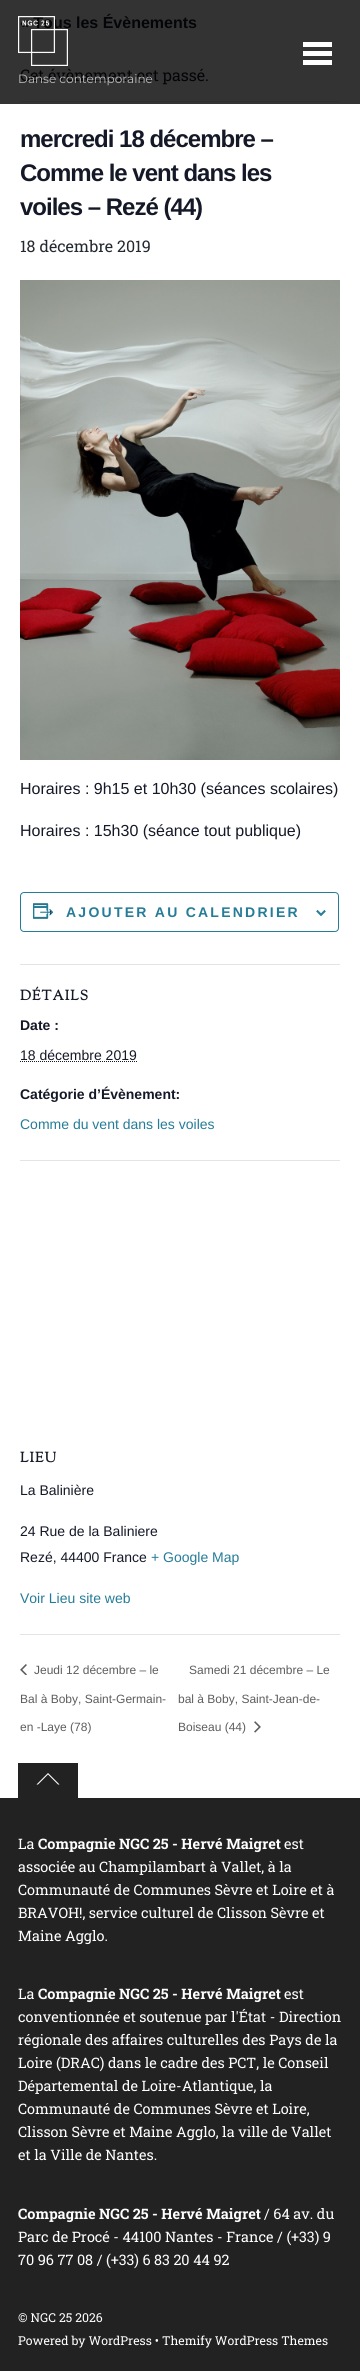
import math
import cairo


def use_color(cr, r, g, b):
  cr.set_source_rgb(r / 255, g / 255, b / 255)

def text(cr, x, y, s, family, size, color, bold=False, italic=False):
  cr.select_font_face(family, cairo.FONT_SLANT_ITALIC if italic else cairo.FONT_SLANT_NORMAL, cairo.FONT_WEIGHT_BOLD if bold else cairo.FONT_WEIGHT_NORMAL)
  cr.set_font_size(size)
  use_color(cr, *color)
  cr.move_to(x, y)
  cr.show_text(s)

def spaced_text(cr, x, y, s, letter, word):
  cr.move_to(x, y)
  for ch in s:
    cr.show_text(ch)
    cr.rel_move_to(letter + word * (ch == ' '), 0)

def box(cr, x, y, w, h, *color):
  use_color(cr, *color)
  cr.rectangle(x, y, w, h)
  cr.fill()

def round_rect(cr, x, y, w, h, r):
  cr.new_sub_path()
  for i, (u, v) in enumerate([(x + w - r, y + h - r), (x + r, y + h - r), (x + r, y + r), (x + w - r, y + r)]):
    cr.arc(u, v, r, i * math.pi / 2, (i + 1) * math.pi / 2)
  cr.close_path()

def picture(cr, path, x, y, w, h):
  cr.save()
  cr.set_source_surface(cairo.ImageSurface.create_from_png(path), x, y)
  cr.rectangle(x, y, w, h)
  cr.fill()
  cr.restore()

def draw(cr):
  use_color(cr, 255, 255, 255)
  cr.paint()
  box(cr, 0, 0, 360, 104, 51, 51, 51)
  box(cr, 20, 101, 320, 1, 46, 46, 46)
  picture(cr, "img_01.png", 20, 280, 320, 480)
  round_rect(cr, 20.5, 892.5, 318, 39, 3.5)
  use_color(cr, 37, 124, 152)
  cr.set_line_width(1)
  cr.stroke()
  picture(cr, "img_02.png", 33, 903, 21, 16)
  picture(cr, "img_03.png", 316, 910, 10, 6)
  box(cr, 20, 964, 320, 1, 228, 228, 228)
  cr.new_path()
  cr.move_to(20, 1061.5)
  cr.line_to(137, 1061.5)
  use_color(cr, 20, 24, 39)
  cr.set_dash([1, 1])
  cr.stroke()
  box(cr, 20, 1160, 320, 1, 228, 228, 228)
  box(cr, 20, 1634, 320, 1, 228, 228, 228)
  picture(cr, "img_04.png", 20, 1664, 7, 11)
  picture(cr, "img_05.png", 254, 1721, 7, 12)
  box(cr, 303, 60, 29, 5, 255, 255, 255)
  box(cr, 303, 42, 29, 5, 255, 255, 255)
  box(cr, 303, 51, 29, 5, 255, 255, 255)
  box(cr, 0, 1798, 360, 573, 34, 34, 34)
  box(cr, 18, 1763, 60, 35, 34, 34, 34)
  use_color(cr, 255, 255, 255)
  cr.new_path()
  cr.move_to(48, 1773)
  cr.line_to(59.5, 1784.5)
  cr.line_to(58, 1784.5)
  cr.line_to(48, 1774.5)
  cr.close_path()
  cr.move_to(36.5, 1784.5)
  cr.line_to(48, 1773)
  cr.line_to(48, 1774.5)
  cr.line_to(38, 1784.5)
  cr.close_path()
  cr.fill()
  text(cr, 20, 28, "« Tous les Évènements", "Liberation Sans", 16, (4, 5, 8), bold=True)
  text(cr, 20, 81, "Cet évènement est passé.", "Roboto Slab", 16, (4, 5, 8))
  cr.select_font_face("Liberation Sans", cairo.FONT_SLANT_NORMAL, cairo.FONT_WEIGHT_BOLD)
  cr.set_font_size(24)
  use_color(cr, 20, 24, 39)
  spaced_text(cr, 20, 147, "mercredi 18 décembre –", -1, 0)
  spaced_text(cr, 20, 181, "Comme le vent dans les", -1, 0)
  spaced_text(cr, 20, 215, "voiles – Rezé (44)", -1, 0)
  text(cr, 20, 252, "18 décembre 2019", "Roboto Slab", 16, (35, 41, 48))
  text(cr, 20, 794, "Horaires : 9h15 et 10h30 (séances scolaires)", "Liberation Sans", 16, (20, 24, 39))
  text(cr, 20, 836, "Horaires : 15h30 (séance tout publique)", "Liberation Sans", 16, (20, 24, 39))
  cr.select_font_face("Liberation Sans", cairo.FONT_SLANT_NORMAL, cairo.FONT_WEIGHT_BOLD)
  cr.set_font_size(14)
  use_color(cr, 37, 124, 152)
  spaced_text(cr, 66, 917, "AJOUTER AU CALENDRIER", 2.25, 0)
  cr.select_font_face("Sorts Mill Goudy", cairo.FONT_SLANT_NORMAL, cairo.FONT_WEIGHT_BOLD)
  use_color(cr, 20, 24, 39)
  spaced_text(cr, 20, 1000, "DÉTAILS", 1, 0)
  text(cr, 20, 1030, "Date :", "Liberation Sans", 14, (20, 24, 39), bold=True)
  text(cr, 20, 1060, "18 décembre 2019", "Liberation Sans", 14, (20, 24, 39))
  text(cr, 20, 1099, "Catégorie d’Évènement:", "Liberation Sans", 14, (20, 24, 39), bold=True)
  text(cr, 20, 1129, "Comme du vent dans les voiles", "Liberation Sans", 14, (37, 124, 152))
  cr.select_font_face("Sorts Mill Goudy", cairo.FONT_SLANT_NORMAL, cairo.FONT_WEIGHT_BOLD)
  use_color(cr, 20, 24, 39)
  spaced_text(cr, 20, 1462, "LIEU", 1, 0)
  text(cr, 20, 1495, "La Balinière", "Liberation Sans", 14, (20, 24, 39))
  text(cr, 20, 1536, "24 Rue de la Baliniere", "Liberation Sans", 14, (20, 24, 39))
  text(cr, 20, 1562, "Rezé, 44400 France", "Liberation Sans", 14, (20, 24, 39))
  text(cr, 151, 1562, "+ Google Map", "Liberation Sans", 14, (37, 124, 152))
  text(cr, 20, 1603, "Voir Lieu site web", "Liberation Sans", 14, (37, 124, 152))
  text(cr, 34, 1674, "Jeudi 12 décembre – le", "Liberation Sans", 12, (93, 93, 93))
  text(cr, 20, 1703, "Bal à Boby, Saint-Germain-", "Liberation Sans", 12, (93, 93, 93))
  text(cr, 20, 1731, "en -Laye (78)", "Liberation Sans", 12, (93, 93, 93))
  text(cr, 189, 1674, "Samedi 21 décembre – Le", "Liberation Sans", 12, (93, 93, 93))
  text(cr, 178, 1703, "bal à Boby, Saint-Jean-de-", "Liberation Sans", 12, (93, 93, 93))
  text(cr, 178, 1731, "Boiseau (44)", "Liberation Sans", 12, (93, 93, 93))
  picture(cr, "img_06.png", 18, 16, 50, 50)
  text(cr, 18, 83, "Danse contemporaine", "Montserrat", 12, (190, 190, 191))
  text(cr, 18, 1849, "La", "Roboto Slab", 14.4, (255, 255, 255))
  text(cr, 38, 1849, "Compagnie NGC 25 - Hervé Maigret", "Roboto Slab", 14.4, (255, 255, 255), bold=True)
  text(cr, 284, 1849, "est", "Roboto Slab", 14.4, (255, 255, 255))
  text(cr, 18, 1872, "associée au Champilambart à Vallet, à la", "Roboto Slab", 14.4, (255, 255, 255))
  text(cr, 18, 1895, "Communauté de Communes Sèvre et Loire et à", "Roboto Slab", 14.4, (255, 255, 255))
  text(cr, 18, 1918, "BRAVOH!, service culturel de Clisson Sèvre et", "Roboto Slab", 14.4, (255, 255, 255))
  text(cr, 18, 1941, "Maine Agglo.", "Roboto Slab", 14.4, (255, 255, 255))
  text(cr, 18, 1999, "La", "Roboto Slab", 14.4, (255, 255, 255))
  text(cr, 38, 1999, "Compagnie NGC 25 - Hervé Maigret", "Roboto Slab", 14.4, (255, 255, 255), bold=True)
  text(cr, 284, 1999, "est", "Roboto Slab", 14.4, (255, 255, 255))
  text(cr, 18, 2022, "conventionnée et soutenue par l'État - Direction", "Roboto Slab", 14.4, (255, 255, 255))
  text(cr, 18, 2045, "régionale des affaires culturelles des Pays de la", "Roboto Slab", 14.4, (255, 255, 255))
  text(cr, 18, 2068, "Loire (DRAC) dans le cadre des PCT, le Conseil", "Roboto Slab", 14.4, (255, 255, 255))
  text(cr, 18, 2091, "Départemental de Loire-Atlantique, la", "Roboto Slab", 14.4, (255, 255, 255))
  text(cr, 18, 2114, "Communauté de Communes Sèvre et Loire,", "Roboto Slab", 14.4, (255, 255, 255))
  text(cr, 18, 2137, "Clisson Sèvre et Maine Agglo, la ville de Vallet", "Roboto Slab", 14.4, (255, 255, 255))
  text(cr, 18, 2160, "et la Ville de Nantes.", "Roboto Slab", 14.4, (255, 255, 255))
  text(cr, 18, 2219, "Compagnie NGC 25 - Hervé Maigret", "Roboto Slab", 14.4, (255, 255, 255), bold=True)
  text(cr, 264, 2219, "/ 64 av. du", "Roboto Slab", 14.4, (255, 255, 255))
  text(cr, 18, 2242, "Parc de Procé - 44100 Nantes - France / (+33) 9", "Roboto Slab", 14.4, (255, 255, 255))
  text(cr, 18, 2265, "70 96 77 08 / (+33) 6 83 20 44 92", "Roboto Slab", 14.4, (255, 255, 255))
  text(cr, 18, 2322, "© NGC 25 2026", "Roboto Slab", 12.25, (255, 255, 255))
  text(cr, 18, 2345, "Powered by WordPress • Themify WordPress Themes", "Roboto Slab", 12.25, (255, 255, 255))


surface = cairo.ImageSurface(cairo.FORMAT_RGB24, 360, 2371)
cr = cairo.Context(surface)
options = cairo.FontOptions()
options.set_hint_metrics(cairo.HINT_METRICS_OFF)
options.set_hint_style(cairo.HINT_STYLE_NONE)
cr.set_font_options(options)
cr.set_miter_limit(4)
draw(cr)
surface.write_to_png("out.png")
